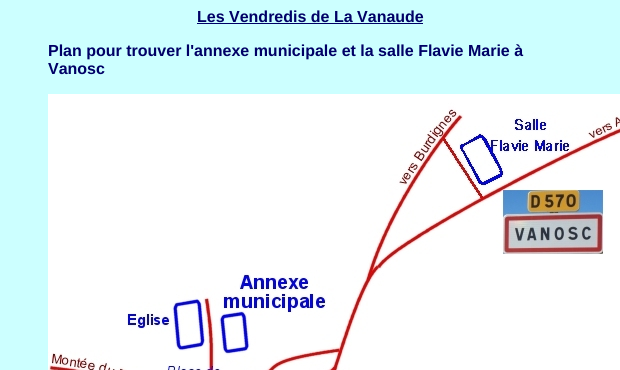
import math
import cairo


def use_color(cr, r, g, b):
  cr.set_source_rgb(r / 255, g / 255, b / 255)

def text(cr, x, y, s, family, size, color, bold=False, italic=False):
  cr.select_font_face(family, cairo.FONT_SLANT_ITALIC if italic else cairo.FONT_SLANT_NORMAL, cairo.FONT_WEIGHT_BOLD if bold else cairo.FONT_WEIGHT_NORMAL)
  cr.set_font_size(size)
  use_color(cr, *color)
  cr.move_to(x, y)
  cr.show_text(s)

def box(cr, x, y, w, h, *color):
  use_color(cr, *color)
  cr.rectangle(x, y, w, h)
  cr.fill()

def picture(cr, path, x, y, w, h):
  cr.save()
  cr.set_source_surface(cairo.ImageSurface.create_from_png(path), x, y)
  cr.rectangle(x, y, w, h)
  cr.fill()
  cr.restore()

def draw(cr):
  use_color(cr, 204, 255, 255)
  cr.paint()
  box(cr, 197, 23, 226, 1, 0, 0, 102)
  picture(cr, "img_01.png", 48, 94, 572, 276)
  text(cr, 197, 22, "Les Vendredis de La Vanaude", "Liberation Sans", 16, (0, 0, 102), bold=True)
  text(cr, 48, 56, "Plan pour trouver l'annexe municipale et la salle Flavie Marie à", "Liberation Sans", 16, (0, 0, 102), bold=True)
  text(cr, 48, 74, "Vanosc", "Liberation Sans", 16, (0, 0, 102), bold=True)


surface = cairo.ImageSurface(cairo.FORMAT_RGB24, 620, 370)
cr = cairo.Context(surface)
options = cairo.FontOptions()
options.set_hint_metrics(cairo.HINT_METRICS_OFF)
options.set_hint_style(cairo.HINT_STYLE_NONE)
cr.set_font_options(options)
cr.set_miter_limit(4)
draw(cr)
surface.write_to_png("out.png")
